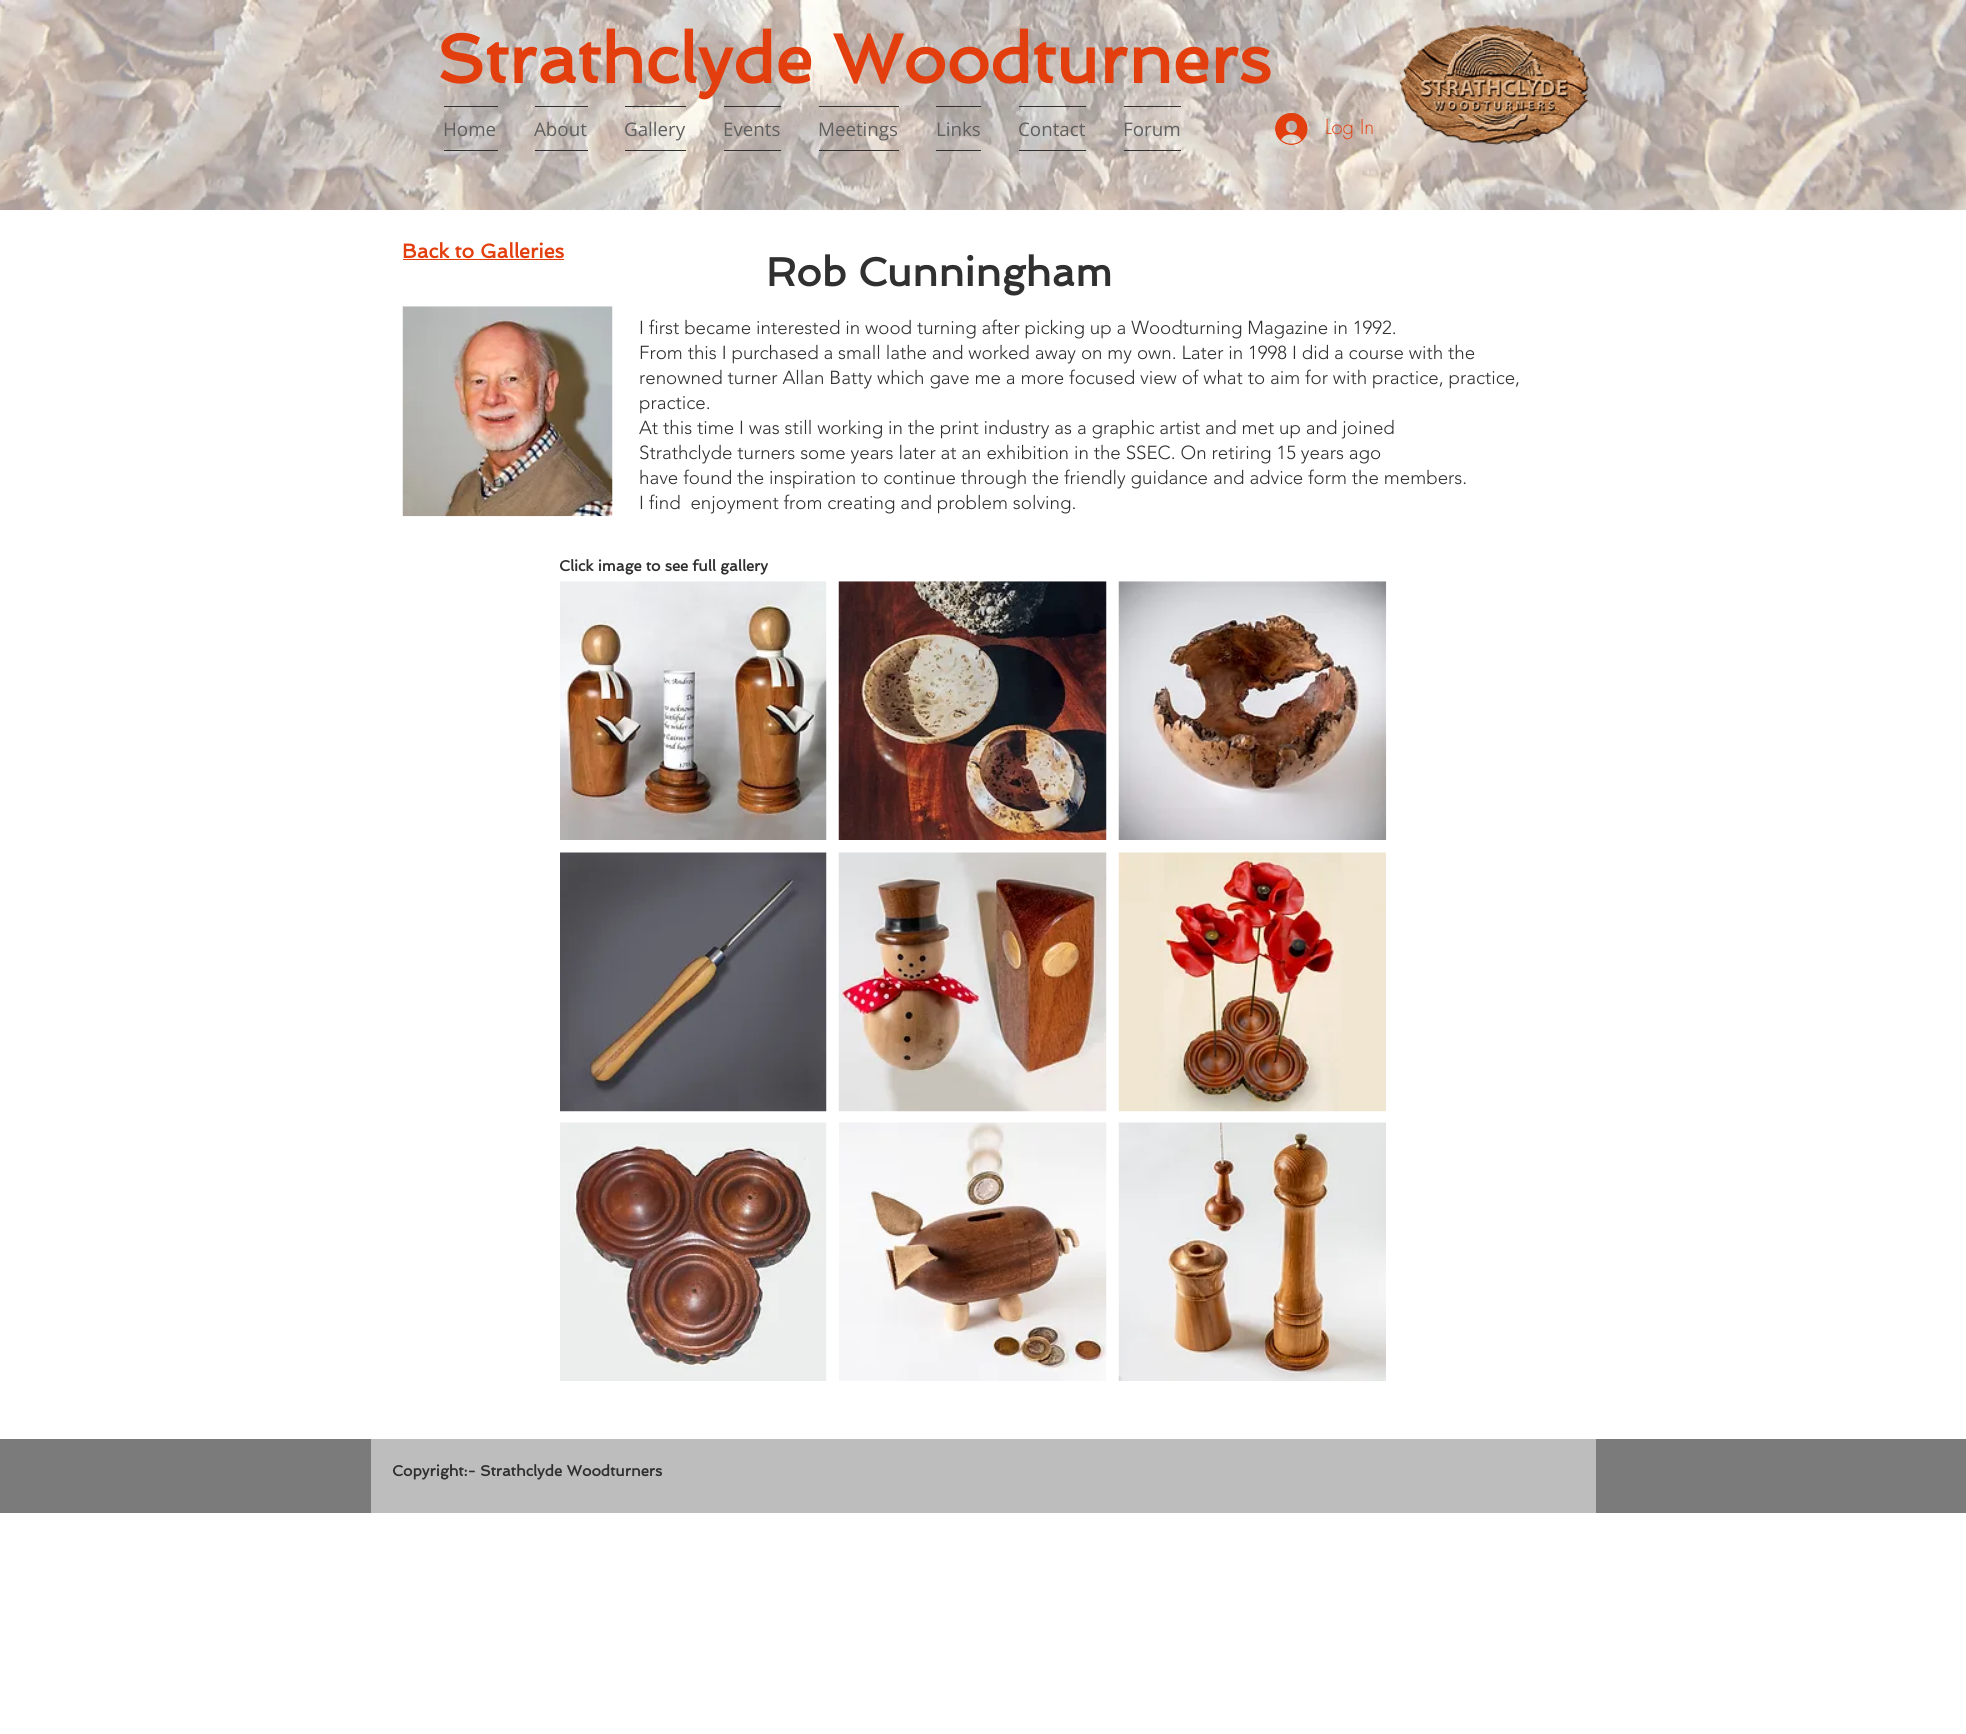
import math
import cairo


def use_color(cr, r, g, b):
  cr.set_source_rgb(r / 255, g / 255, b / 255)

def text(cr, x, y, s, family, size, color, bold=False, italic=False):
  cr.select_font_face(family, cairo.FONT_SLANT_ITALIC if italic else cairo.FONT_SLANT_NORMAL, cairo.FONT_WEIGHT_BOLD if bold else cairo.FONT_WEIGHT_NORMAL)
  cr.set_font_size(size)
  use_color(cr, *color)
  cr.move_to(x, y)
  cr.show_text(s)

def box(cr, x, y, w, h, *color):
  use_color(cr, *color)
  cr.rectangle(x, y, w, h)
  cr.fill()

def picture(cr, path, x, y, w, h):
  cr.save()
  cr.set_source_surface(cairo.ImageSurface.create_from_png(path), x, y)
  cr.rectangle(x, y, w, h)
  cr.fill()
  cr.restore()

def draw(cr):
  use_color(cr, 255, 255, 255)
  cr.paint()
  picture(cr, "img_01.png", 0, 0, 1966, 210)
  picture(cr, "img_02.png", 1399, 24, 190, 122)
  box(cr, 444, 106, 54, 1, 48, 48, 48)
  box(cr, 444, 150, 54, 1, 48, 48, 48)
  box(cr, 535, 106, 53, 1, 48, 48, 48)
  box(cr, 535, 150, 53, 1, 48, 48, 48)
  box(cr, 625, 106, 61, 1, 48, 48, 48)
  box(cr, 625, 150, 61, 1, 48, 48, 48)
  box(cr, 724, 106, 57, 1, 48, 48, 48)
  box(cr, 724, 150, 57, 1, 48, 48, 48)
  box(cr, 819, 106, 80, 1, 48, 48, 48)
  box(cr, 819, 150, 80, 1, 48, 48, 48)
  box(cr, 936, 106, 45, 1, 48, 48, 48)
  box(cr, 936, 150, 45, 1, 48, 48, 48)
  box(cr, 1019, 106, 67, 1, 48, 48, 48)
  box(cr, 1019, 150, 67, 1, 48, 48, 48)
  box(cr, 1124, 106, 57, 1, 48, 48, 48)
  box(cr, 1124, 150, 57, 1, 48, 48, 48)
  picture(cr, "img_03.png", 1275, 113, 33, 32)
  box(cr, 403, 259, 161, 1, 227, 63, 14)
  picture(cr, "img_04.png", 402, 306, 211, 211)
  picture(cr, "img_05.png", 560, 581, 267, 259)
  picture(cr, "img_06.png", 838, 581, 269, 259)
  picture(cr, "img_07.png", 1118, 581, 269, 259)
  picture(cr, "img_08.png", 560, 852, 267, 260)
  picture(cr, "img_09.png", 838, 852, 269, 260)
  picture(cr, "img_10.png", 1118, 852, 268, 260)
  picture(cr, "img_11.png", 560, 1122, 267, 259)
  picture(cr, "img_12.png", 839, 1122, 268, 259)
  picture(cr, "img_13.png", 1118, 1122, 268, 259)
  box(cr, 0, 1439, 1966, 74, 123, 123, 123)
  box(cr, 371, 1439, 1225, 74, 189, 189, 189)
  text(cr, 436, 83, "Strathclyde Woodturners", "Spinnaker", 68.75, (227, 63, 14), bold=True)
  text(cr, 443, 136, "Home", "Open Sans", 18.75, (95, 95, 95))
  text(cr, 534, 136, "About", "Open Sans", 18.75, (95, 95, 95))
  text(cr, 624, 136, "Gallery", "Open Sans", 18.75, (95, 95, 95))
  text(cr, 723, 136, "Events", "Open Sans", 18.75, (95, 95, 95))
  text(cr, 818, 136, "Meetings", "Open Sans", 18.75, (95, 95, 95))
  text(cr, 936, 136, "Links", "Open Sans", 18.75, (95, 95, 95))
  text(cr, 1018, 136, "Contact", "Open Sans", 18.75, (95, 95, 95))
  text(cr, 1123, 136, "Forum", "Open Sans", 18.75, (95, 95, 95))
  text(cr, 1325, 134, "Log In", "futura Light", 20, (227, 63, 14))
  text(cr, 402, 258, "Back to Galleries", "Spinnaker", 20, (227, 63, 14), bold=True)
  text(cr, 766, 286, "Rob Cunningham", "Spinnaker", 40, (48, 48, 48), bold=True)
  text(cr, 639, 334, "I first became interested in wood turning after picking up a Woodturning Magazine in 1992.", "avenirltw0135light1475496 Light", 18.75, (48, 48, 48))
  text(cr, 639, 359, "From this I purchased a small lathe and worked away on my own. Later in 1998 I did a course with the", "avenirltw0135light1475496 Light", 18.75, (48, 48, 48))
  text(cr, 639, 384, "renowned turner Allan Batty which gave me a more focused view of what to aim for with practice, practice,", "avenirltw0135light1475496 Light", 18.75, (48, 48, 48))
  text(cr, 639, 409, "practice.", "avenirltw0135light1475496 Light", 18.75, (48, 48, 48))
  text(cr, 639, 434, "At this time I was still working in the print industry as a graphic artist and met up and joined", "avenirltw0135light1475496 Light", 18.75, (48, 48, 48))
  text(cr, 639, 459, "Strathclyde turners some years later at an exhibition in the SSEC. On retiring 15 years ago", "avenirltw0135light1475496 Light", 18.75, (48, 48, 48))
  text(cr, 639, 484, "have found the inspiration to continue through the friendly guidance and advice form the members.", "avenirltw0135light1475496 Light", 18.75, (48, 48, 48))
  text(cr, 639, 509, "I find  enjoyment from creating and problem solving.", "avenirltw0135light1475496 Light", 18.75, (48, 48, 48))
  text(cr, 559, 571, "Click image to see full gallery", "Spinnaker", 15, (48, 48, 48), bold=True)
  text(cr, 392, 1476, "Copyright:- Strathclyde Woodturners", "Spinnaker", 15, (48, 48, 48), bold=True)


surface = cairo.ImageSurface(cairo.FORMAT_RGB24, 1966, 1734)
cr = cairo.Context(surface)
options = cairo.FontOptions()
options.set_hint_metrics(cairo.HINT_METRICS_OFF)
options.set_hint_style(cairo.HINT_STYLE_NONE)
cr.set_font_options(options)
cr.set_miter_limit(4)
draw(cr)
surface.write_to_png("out.png")
